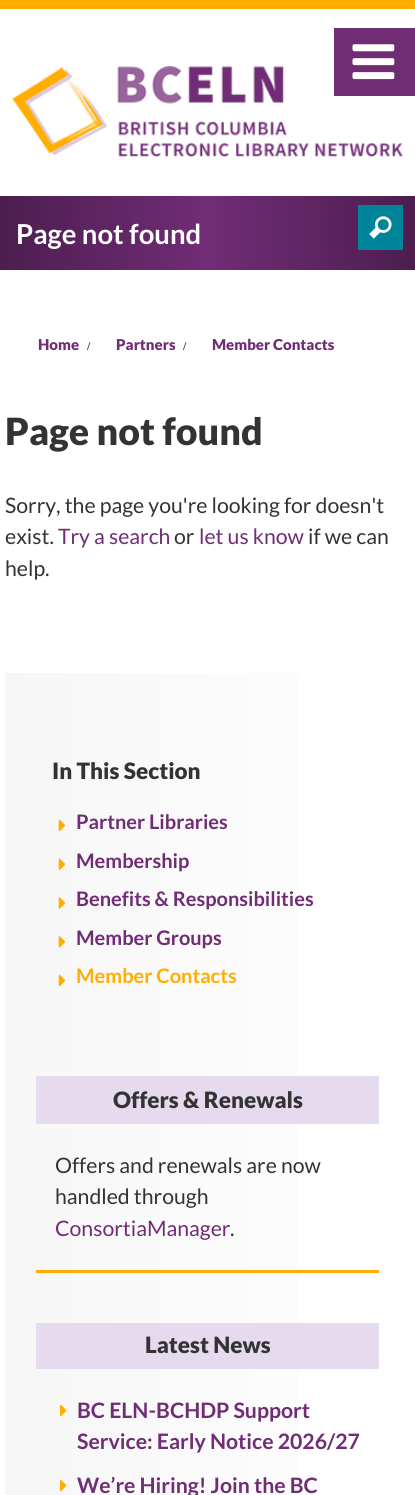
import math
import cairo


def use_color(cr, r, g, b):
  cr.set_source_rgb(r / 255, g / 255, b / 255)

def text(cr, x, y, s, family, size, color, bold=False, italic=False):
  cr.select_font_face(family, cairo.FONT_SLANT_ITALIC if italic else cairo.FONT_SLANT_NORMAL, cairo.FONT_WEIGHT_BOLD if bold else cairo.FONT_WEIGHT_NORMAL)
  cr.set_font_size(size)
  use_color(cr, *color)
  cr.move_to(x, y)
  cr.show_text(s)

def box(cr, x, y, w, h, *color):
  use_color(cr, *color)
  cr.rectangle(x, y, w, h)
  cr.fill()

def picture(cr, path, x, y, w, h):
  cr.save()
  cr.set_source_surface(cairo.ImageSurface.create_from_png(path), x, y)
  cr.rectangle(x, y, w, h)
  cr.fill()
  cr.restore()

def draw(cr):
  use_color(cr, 255, 255, 255)
  cr.paint()
  box(cr, 0, 0, 415, 9, 255, 173, 0)
  picture(cr, "img_03.png", 12, 66, 391, 91)
  box(cr, 334, 28, 81, 68, 113, 44, 118)
  picture(cr, "img_01.png", 352, 44, 43, 36)
  gradient = cairo.LinearGradient(0, 233, 415, 233)
  gradient.add_color_stop_rgba(0, 0.298, 0.118, 0.31, 1)
  gradient.add_color_stop_rgba(0.5, 0.443, 0.173, 0.463, 1)
  gradient.add_color_stop_rgba(1, 0.298, 0.118, 0.31, 1)
  cr.set_source(gradient)
  cr.rectangle(0, 196, 415, 74)
  cr.fill()
  box(cr, 358, 205, 45, 45, 0, 132, 153)
  picture(cr, "img_02.png", 369, 216, 23, 23)
  gradient = cairo.LinearGradient(5, 1293, 410, 1293)
  gradient.add_color_stop_rgba(0, 0.965, 0.965, 0.965, 1)
  gradient.add_color_stop_rgba(1, 1, 1, 1, 1)
  cr.set_source(gradient)
  cr.rectangle(5, 673, 293, 822)
  cr.fill()
  picture(cr, "img_04.png", 58, 819, 8, 13)
  picture(cr, "img_05.png", 58, 858, 8, 12)
  picture(cr, "img_06.png", 58, 897, 8, 12)
  picture(cr, "img_07.png", 58, 936, 8, 12)
  picture(cr, "img_04.png", 58, 974, 8, 13)
  box(cr, 36, 1076, 343, 48, 229, 218, 238)
  box(cr, 36, 1270, 343, 3, 255, 173, 0)
  box(cr, 36, 1323, 343, 46, 229, 218, 238)
  picture(cr, "img_08.png", 60, 1404, 7, 13)
  picture(cr, "img_08.png", 60, 1479, 7, 13)
  text(cr, 16, 244, "Page not found", "Lato", 27.5, (255, 255, 255), bold=True)
  text(cr, 38, 350, "Home", "Lato Black", 15, (113, 44, 118))
  text(cr, 87, 350, "/", "Liberation Serif", 12, (51, 51, 51), bold=True)
  text(cr, 116, 350, "Partners", "Lato Black", 15, (113, 44, 118))
  text(cr, 183, 350, "/", "Liberation Serif", 12, (51, 51, 51), bold=True)
  text(cr, 212, 350, "Member Contacts", "Lato Black", 15, (113, 44, 118))
  text(cr, 5, 445, "Page not found", "Lato Black", 37.5, (51, 51, 51))
  text(cr, 5, 513, "Sorry, the page you're looking for doesn't", "Lato", 21.25, (51, 51, 51))
  text(cr, 5, 544, "exist.", "Lato", 21.25, (51, 51, 51))
  text(cr, 58, 544, "Try a search", "Lato", 21.25, (113, 44, 118))
  text(cr, 174, 544, "or", "Lato", 21.25, (51, 51, 51))
  text(cr, 199, 544, "let us know", "Lato", 21.25, (113, 44, 118))
  text(cr, 308, 544, "if we can", "Lato", 21.25, (51, 51, 51))
  text(cr, 5, 576, "help.", "Lato", 21.25, (51, 51, 51))
  text(cr, 52, 779, "In This Section", "Lato Black", 22.5, (51, 51, 51))
  text(cr, 76, 829, "Partner Libraries", "Lato", 20, (113, 44, 118), bold=True)
  text(cr, 76, 868, "Membership", "Lato", 20, (113, 44, 118), bold=True)
  text(cr, 76, 906, "Benefits & Responsibilities", "Lato", 20, (113, 44, 118), bold=True)
  text(cr, 76, 945, "Member Groups", "Lato", 20, (113, 44, 118), bold=True)
  text(cr, 76, 983, "Member Contacts", "Lato", 20, (255, 173, 0), bold=True)
  text(cr, 113, 1108, "Offers & Renewals", "Lato Black", 22.5, (51, 51, 51))
  text(cr, 55, 1173, "Offers and renewals are now", "Lato", 21.25, (51, 51, 51))
  text(cr, 55, 1204, "handled through", "Lato", 21.25, (51, 51, 51))
  text(cr, 55, 1236, "ConsortiaManager", "Lato", 21.25, (113, 44, 118))
  text(cr, 230, 1236, ".", "Lato", 21.25, (51, 51, 51))
  text(cr, 145, 1353, "Latest News", "Lato Black", 22.5, (51, 51, 51))
  text(cr, 77, 1418, "BC ELN-BCHDP Support", "Lato", 21.25, (113, 44, 118), bold=True)
  text(cr, 77, 1449, "Service: Early Notice 2026/27", "Lato", 21.25, (113, 44, 118), bold=True)
  text(cr, 77, 1493, "We’re Hiring! Join the BC", "Lato", 21.25, (113, 44, 118), bold=True)


surface = cairo.ImageSurface(cairo.FORMAT_RGB24, 415, 1495)
cr = cairo.Context(surface)
options = cairo.FontOptions()
options.set_hint_metrics(cairo.HINT_METRICS_OFF)
options.set_hint_style(cairo.HINT_STYLE_NONE)
cr.set_font_options(options)
cr.set_miter_limit(4)
draw(cr)
surface.write_to_png("out.png")
